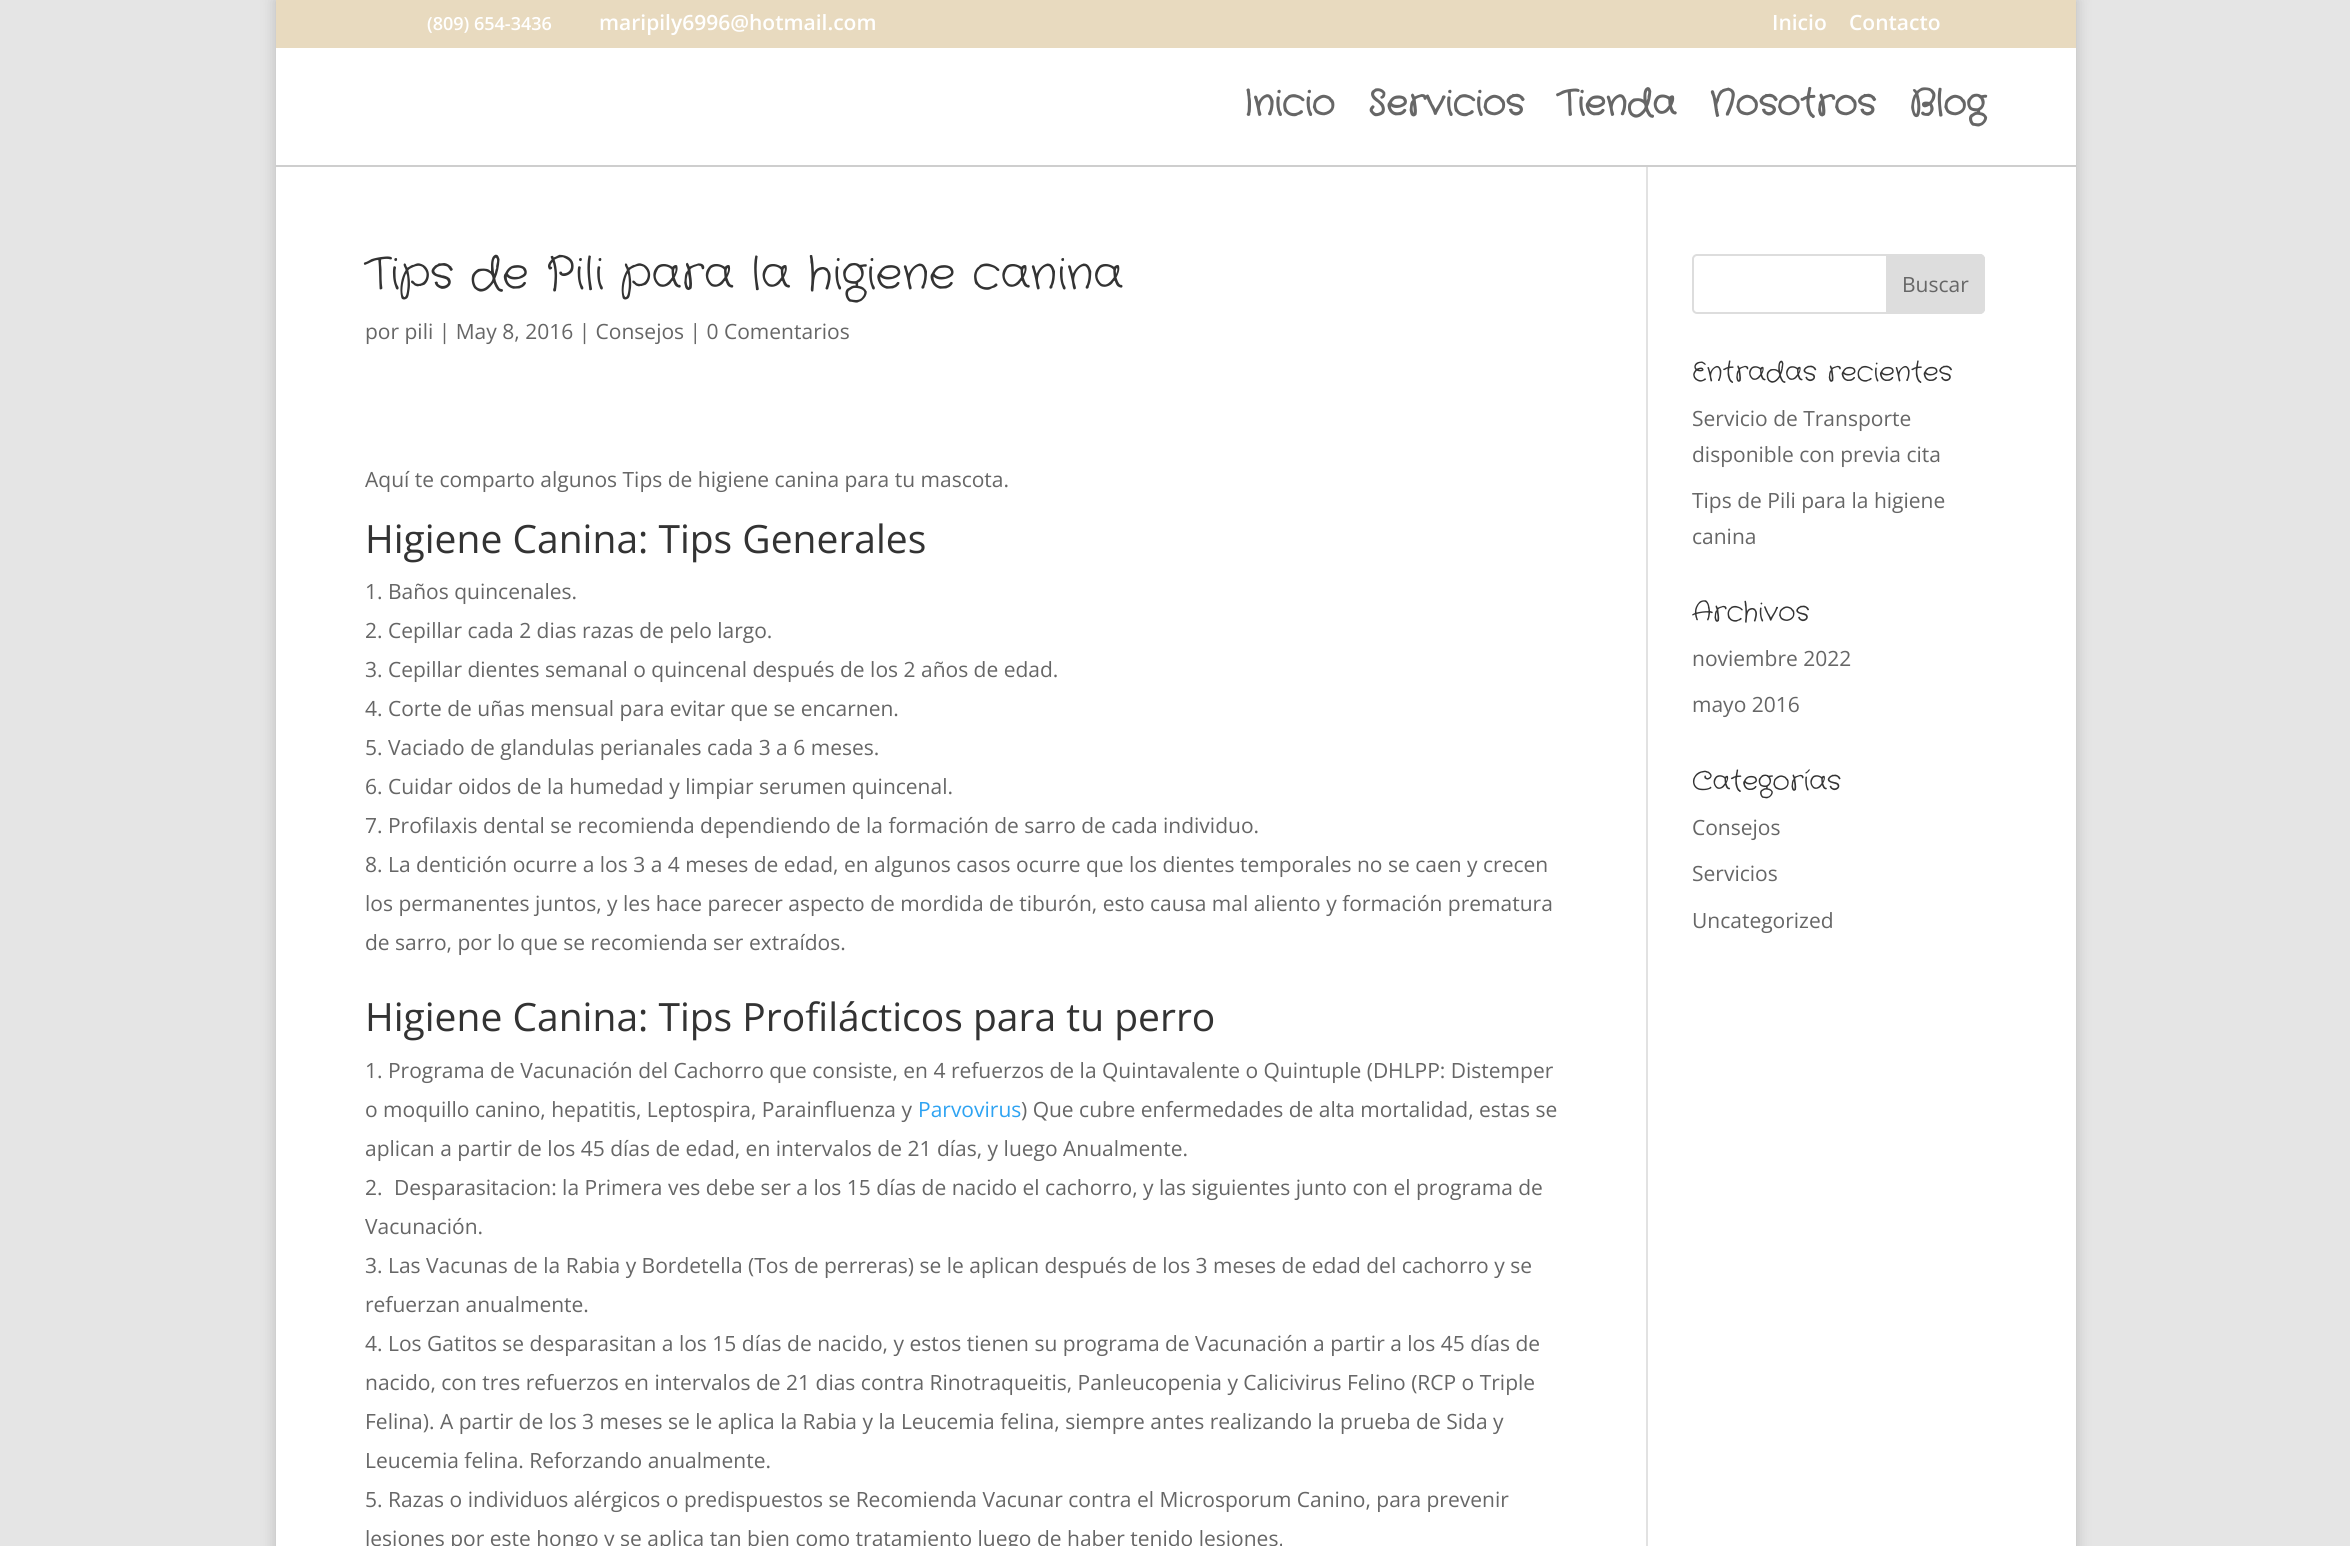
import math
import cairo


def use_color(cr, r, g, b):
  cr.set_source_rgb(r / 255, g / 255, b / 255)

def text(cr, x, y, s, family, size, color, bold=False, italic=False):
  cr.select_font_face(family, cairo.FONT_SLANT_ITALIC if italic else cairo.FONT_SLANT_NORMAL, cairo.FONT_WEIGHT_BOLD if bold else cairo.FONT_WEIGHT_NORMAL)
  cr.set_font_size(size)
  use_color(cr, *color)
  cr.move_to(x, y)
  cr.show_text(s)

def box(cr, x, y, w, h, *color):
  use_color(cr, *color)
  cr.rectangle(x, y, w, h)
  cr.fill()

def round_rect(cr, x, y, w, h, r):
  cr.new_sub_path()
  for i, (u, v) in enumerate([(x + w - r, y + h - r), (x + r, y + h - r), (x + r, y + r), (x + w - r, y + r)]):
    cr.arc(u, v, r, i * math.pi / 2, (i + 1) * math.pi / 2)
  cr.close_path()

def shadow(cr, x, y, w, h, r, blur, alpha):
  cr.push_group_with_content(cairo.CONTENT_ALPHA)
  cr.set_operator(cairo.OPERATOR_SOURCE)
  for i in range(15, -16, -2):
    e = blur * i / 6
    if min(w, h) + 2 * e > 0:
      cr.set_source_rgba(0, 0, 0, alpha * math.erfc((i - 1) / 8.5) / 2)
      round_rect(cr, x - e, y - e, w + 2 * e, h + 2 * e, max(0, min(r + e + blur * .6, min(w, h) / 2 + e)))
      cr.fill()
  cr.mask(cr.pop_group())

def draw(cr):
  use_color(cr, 229, 229, 229)
  cr.paint()
  use_color(cr, 0, 0, 0)
  shadow(cr, 276, 0, 1800, 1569, 0, 7.5, 0.2)
  box(cr, 276, 0, 1800, 48, 232, 218, 191)
  box(cr, 276, 165, 1800, 2, 206, 206, 206)
  box(cr, 276, 48, 1800, 117, 255, 255, 255)
  box(cr, 276, 167, 1800, 1379, 255, 255, 255)
  box(cr, 1646, 167, 2, 1379, 226, 226, 226)
  round_rect(cr, 1693, 255, 291, 58, 4)
  use_color(cr, 221, 221, 221)
  cr.stroke()
  cr.new_path()
  cr.move_to(1887, 255)
  cr.line_to(1980, 255)
  cr.curve_to(1982, 255, 1984, 257, 1984, 259)
  cr.line_to(1984, 309)
  cr.curve_to(1984, 311, 1982, 313, 1980, 313)
  cr.line_to(1887, 313)
  cr.close_path()
  cr.fill_preserve()
  cr.stroke()
  text(cr, 427, 30, "(809) 654-3436", "Open Sans SemiBold", 18, (255, 255, 255))
  text(cr, 599, 30, "maripily6996@hotmail.com", "Open Sans SemiBold", 21, (255, 255, 255))
  text(cr, 1772, 30, "Inicio", "Open Sans SemiBold", 21, (255, 255, 255))
  text(cr, 1849, 30, "Contacto", "Open Sans SemiBold", 21, (255, 255, 255))
  text(cr, 1243, 114, "Inicio", "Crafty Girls", 36, (102, 102, 102), bold=True)
  text(cr, 1368, 114, "Servicios", "Crafty Girls", 36, (102, 102, 102), bold=True)
  text(cr, 1557, 114, "Tienda", "Crafty Girls", 36, (102, 102, 102), bold=True)
  text(cr, 1709, 114, "Nosotros", "Crafty Girls", 36, (102, 102, 102), bold=True)
  text(cr, 1909, 114, "Blog", "Crafty Girls", 36, (102, 102, 102), bold=True)
  text(cr, 365, 287, "Tips de Pili para la higiene canina", "Crafty Girls", 45, (51, 51, 51))
  text(cr, 365, 339, "por pili | May 8, 2016 | Consejos | 0 Comentarios", "Open Sans", 21, (102, 102, 102))
  text(cr, 365, 487, "Aquí te comparto algunos Tips de higiene canina para tu mascota.", "Open Sans", 21, (102, 102, 102))
  text(cr, 365, 553, "Higiene Canina: Tips Generales", "Open Sans", 39, (51, 51, 51))
  text(cr, 365, 599, "1. Baños quincenales.", "Open Sans", 21, (102, 102, 102))
  text(cr, 365, 638, "2. Cepillar cada 2 dias razas de pelo largo.", "Open Sans", 21, (102, 102, 102))
  text(cr, 365, 677, "3. Cepillar dientes semanal o quincenal después de los 2 años de edad.", "Open Sans", 21, (102, 102, 102))
  text(cr, 365, 716, "4. Corte de uñas mensual para evitar que se encarnen.", "Open Sans", 21, (102, 102, 102))
  text(cr, 365, 755, "5. Vaciado de glandulas perianales cada 3 a 6 meses.", "Open Sans", 21, (102, 102, 102))
  text(cr, 365, 794, "6. Cuidar oidos de la humedad y limpiar serumen quincenal.", "Open Sans", 21, (102, 102, 102))
  text(cr, 365, 833, "7. Profilaxis dental se recomienda dependiendo de la formación de sarro de cada individuo.", "Open Sans", 21, (102, 102, 102))
  text(cr, 365, 872, "8. La dentición ocurre a los 3 a 4 meses de edad, en algunos casos ocurre que los dientes temporales no se caen y crecen", "Open Sans", 21, (102, 102, 102))
  text(cr, 365, 911, "los permanentes juntos, y les hace parecer aspecto de mordida de tiburón, esto causa mal aliento y formación prematura", "Open Sans", 21, (102, 102, 102))
  text(cr, 365, 950, "de sarro, por lo que se recomienda ser extraídos.", "Open Sans", 21, (102, 102, 102))
  text(cr, 365, 1031, "Higiene Canina: Tips Profilácticos para tu perro", "Open Sans", 39, (51, 51, 51))
  text(cr, 365, 1078, "1. Programa de Vacunación del Cachorro que consiste, en 4 refuerzos de la Quintavalente o Quintuple (DHLPP: Distemper", "Open Sans", 21, (102, 102, 102))
  text(cr, 365, 1117, "o moquillo canino, hepatitis, Leptospira, Parainfluenza y", "Open Sans", 21, (102, 102, 102))
  text(cr, 918, 1117, "Parvovirus", "Open Sans", 21, (46, 163, 242))
  text(cr, 1021, 1117, ") Que cubre enfermedades de alta mortalidad, estas se", "Open Sans", 21, (102, 102, 102))
  text(cr, 365, 1156, "aplican a partir de los 45 días de edad, en intervalos de 21 días, y luego Anualmente.", "Open Sans", 21, (102, 102, 102))
  text(cr, 365, 1195, "2.", "Open Sans", 21, (102, 102, 102))
  text(cr, 394, 1195, "Desparasitacion: la Primera ves debe ser a los 15 días de nacido el cachorro, y las siguientes junto con el programa de", "Open Sans", 21, (102, 102, 102))
  text(cr, 365, 1234, "Vacunación.", "Open Sans", 21, (102, 102, 102))
  text(cr, 365, 1273, "3. Las Vacunas de la Rabia y Bordetella (Tos de perreras) se le aplican después de los 3 meses de edad del cachorro y se", "Open Sans", 21, (102, 102, 102))
  text(cr, 365, 1312, "refuerzan anualmente.", "Open Sans", 21, (102, 102, 102))
  text(cr, 365, 1351, "4. Los Gatitos se desparasitan a los 15 días de nacido, y estos tienen su programa de Vacunación a partir a los 45 días de", "Open Sans", 21, (102, 102, 102))
  text(cr, 365, 1390, "nacido, con tres refuerzos en intervalos de 21 dias contra Rinotraqueitis, Panleucopenia y Calicivirus Felino (RCP o Triple", "Open Sans", 21, (102, 102, 102))
  text(cr, 365, 1429, "Felina). A partir de los 3 meses se le aplica la Rabia y la Leucemia felina, siempre antes realizando la prueba de Sida y", "Open Sans", 21, (102, 102, 102))
  text(cr, 365, 1468, "Leucemia felina. Reforzando anualmente.", "Open Sans", 21, (102, 102, 102))
  text(cr, 365, 1507, "5. Razas o individuos alérgicos o predispuestos se Recomienda Vacunar contra el Microsporum Canino, para prevenir", "Open Sans", 21, (102, 102, 102))
  text(cr, 365, 1546, "lesiones por este hongo y se aplica tan bien como tratamiento luego de haber tenido lesiones.", "Open Sans", 21, (102, 102, 102))
  text(cr, 1902, 292, "Buscar", "Open Sans", 21, (102, 102, 102))
  text(cr, 1692, 380, "Entradas recientes", "Crafty Girls", 27, (51, 51, 51))
  text(cr, 1692, 426, "Servicio de Transporte", "Open Sans", 21, (102, 102, 102))
  text(cr, 1692, 462, "disponible con previa cita", "Open Sans", 21, (102, 102, 102))
  text(cr, 1692, 508, "Tips de Pili para la higiene", "Open Sans", 21, (102, 102, 102))
  text(cr, 1692, 544, "canina", "Open Sans", 21, (102, 102, 102))
  text(cr, 1692, 620, "Archivos", "Crafty Girls", 27, (51, 51, 51))
  text(cr, 1692, 666, "noviembre 2022", "Open Sans", 21, (102, 102, 102))
  text(cr, 1692, 712, "mayo 2016", "Open Sans", 21, (102, 102, 102))
  text(cr, 1692, 789, "Categorías", "Crafty Girls", 27, (51, 51, 51))
  text(cr, 1692, 835, "Consejos", "Open Sans", 21, (102, 102, 102))
  text(cr, 1692, 881, "Servicios", "Open Sans", 21, (102, 102, 102))
  text(cr, 1692, 928, "Uncategorized", "Open Sans", 21, (102, 102, 102))


surface = cairo.ImageSurface(cairo.FORMAT_RGB24, 2350, 1546)
cr = cairo.Context(surface)
options = cairo.FontOptions()
options.set_hint_metrics(cairo.HINT_METRICS_OFF)
options.set_hint_style(cairo.HINT_STYLE_NONE)
cr.set_font_options(options)
cr.set_miter_limit(4)
draw(cr)
surface.write_to_png("out.png")
